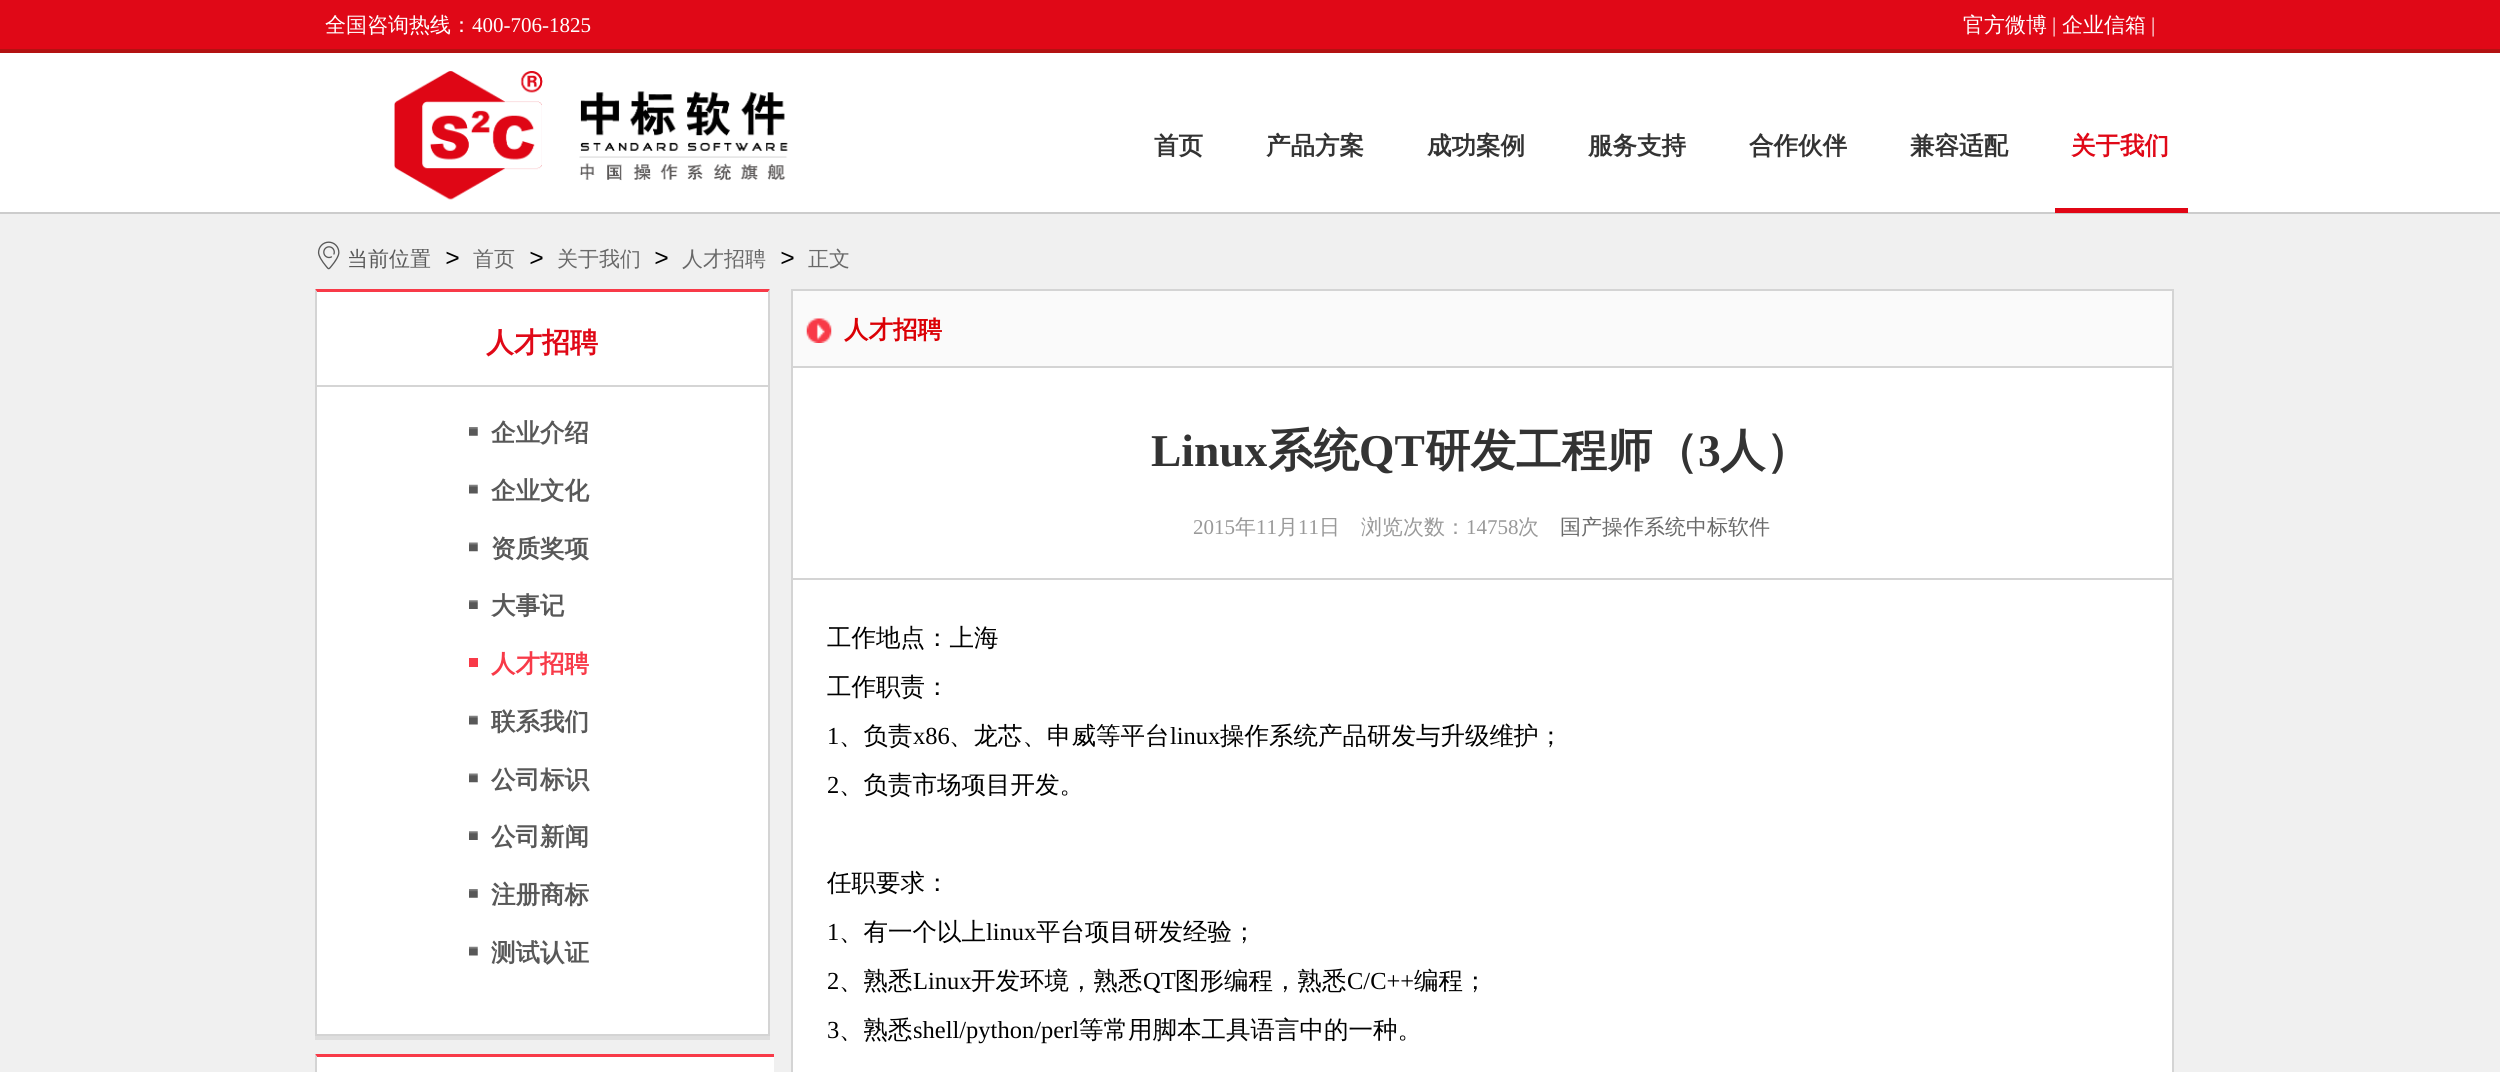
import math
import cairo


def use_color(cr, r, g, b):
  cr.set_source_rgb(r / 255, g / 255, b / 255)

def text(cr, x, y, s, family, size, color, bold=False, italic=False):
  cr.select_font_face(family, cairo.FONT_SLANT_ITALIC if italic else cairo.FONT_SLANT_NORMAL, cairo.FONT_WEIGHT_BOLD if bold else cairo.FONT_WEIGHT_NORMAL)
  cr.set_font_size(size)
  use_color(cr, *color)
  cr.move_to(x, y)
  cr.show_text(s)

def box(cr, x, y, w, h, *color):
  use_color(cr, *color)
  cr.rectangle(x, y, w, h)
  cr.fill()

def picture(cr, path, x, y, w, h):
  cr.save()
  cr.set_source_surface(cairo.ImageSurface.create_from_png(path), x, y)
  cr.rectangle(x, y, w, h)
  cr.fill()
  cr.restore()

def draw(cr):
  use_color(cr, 240, 240, 240)
  cr.paint()
  box(cr, 0, 53, 2500, 159, 255, 255, 255)
  box(cr, 0, 212, 2500, 2, 204, 204, 204)
  box(cr, 0, 0, 2500, 49, 224, 8, 23)
  box(cr, 0, 49, 2500, 4, 179, 18, 18)
  picture(cr, "img_01.png", 394, 71, 394, 129)
  box(cr, 2055, 208, 133, 5, 225, 6, 21)
  picture(cr, "img_02.png", 317, 241, 23, 29)
  box(cr, 315, 1036, 455, 4, 222, 222, 222)
  box(cr, 317, 292, 451, 742, 255, 255, 255)
  use_color(cr, 248, 58, 72)
  cr.new_path()
  cr.move_to(315, 289)
  cr.line_to(770, 289)
  cr.line_to(768, 292)
  cr.line_to(317, 292)
  cr.close_path()
  cr.fill()
  use_color(cr, 212, 212, 212)
  cr.new_path()
  cr.move_to(770, 289)
  cr.line_to(770, 1036)
  cr.line_to(768, 1034)
  cr.line_to(768, 292)
  cr.close_path()
  cr.fill()
  box(cr, 315, 1034, 455, 2, 212, 212, 212)
  cr.new_path()
  cr.move_to(315, 1036)
  cr.line_to(315, 289)
  cr.line_to(317, 292)
  cr.line_to(317, 1034)
  cr.close_path()
  cr.fill()
  box(cr, 317, 385, 451, 2, 213, 213, 213)
  picture(cr, "img_03.png", 469, 427, 9, 9)
  picture(cr, "img_04.png", 469, 484, 9, 10)
  picture(cr, "img_05.png", 469, 542, 9, 10)
  picture(cr, "img_06.png", 469, 600, 9, 9)
  box(cr, 469, 658, 9, 9, 248, 58, 72)
  picture(cr, "img_04.png", 469, 715, 9, 10)
  picture(cr, "img_05.png", 469, 773, 9, 10)
  picture(cr, "img_06.png", 469, 831, 9, 9)
  picture(cr, "img_03.png", 469, 889, 9, 9)
  picture(cr, "img_04.png", 469, 946, 9, 10)
  box(cr, 315, 1054, 459, 18, 255, 255, 255)
  cr.save()
  cr.rectangle(315, 289, 459, 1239)
  cr.clip()
  use_color(cr, 248, 58, 72)
  cr.new_path()
  cr.move_to(315, 1054)
  cr.line_to(805, 1054)
  cr.line_to(803, 1057)
  cr.line_to(317, 1057)
  cr.close_path()
  cr.fill()
  cr.restore()
  use_color(cr, 212, 212, 212)
  cr.new_path()
  cr.move_to(315, 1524)
  cr.line_to(315, 1054)
  cr.line_to(317, 1057)
  cr.line_to(317, 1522)
  cr.close_path()
  cr.fill()
  box(cr, 793, 368, 1379, 704, 255, 255, 255)
  cr.rectangle(792, 290, 1381, 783)
  use_color(cr, 212, 212, 212)
  cr.stroke()
  box(cr, 793, 291, 1379, 75, 250, 250, 250)
  box(cr, 793, 366, 1379, 2, 212, 212, 212)
  picture(cr, "img_07.png", 806, 318, 26, 25)
  box(cr, 793, 578, 1379, 2, 212, 212, 212)
  text(cr, 325, 32, "全国咨询热线：", "WenQuanYi Zen Hei Medium", 21, (255, 255, 255))
  text(cr, 472, 32, "400-706-1825", "Liberation Serif", 21, (255, 255, 255))
  text(cr, 1963, 32, "官方微博", "WenQuanYi Zen Hei Medium", 21, (255, 255, 255))
  text(cr, 2052, 32, "|", "Liberation Serif", 21, (255, 255, 255))
  text(cr, 2062, 32, "企业信箱", "WenQuanYi Zen Hei Medium", 21, (255, 255, 255))
  text(cr, 2151, 32, "|", "Liberation Serif", 21, (255, 255, 255))
  text(cr, 1154, 154, "首页", "WenQuanYi Zen Hei", 24.5, (51, 51, 51), bold=True)
  text(cr, 1266, 154, "产品方案", "WenQuanYi Zen Hei", 24.5, (51, 51, 51), bold=True)
  text(cr, 1427, 154, "成功案例", "WenQuanYi Zen Hei", 24.5, (51, 51, 51), bold=True)
  text(cr, 1588, 154, "服务支持", "WenQuanYi Zen Hei", 24.5, (51, 51, 51), bold=True)
  text(cr, 1749, 154, "合作伙伴", "WenQuanYi Zen Hei", 24.5, (51, 51, 51), bold=True)
  text(cr, 1910, 154, "兼容适配", "WenQuanYi Zen Hei", 24.5, (51, 51, 51), bold=True)
  text(cr, 2071, 154, "关于我们", "WenQuanYi Zen Hei", 24.5, (224, 8, 23), bold=True)
  text(cr, 347, 266, "当前位置", "WenQuanYi Zen Hei Medium", 21, (88, 88, 88))
  text(cr, 445, 266, ">", "Liberation Sans", 24.5, (0, 0, 0), italic=True)
  text(cr, 473, 266, "首页", "WenQuanYi Zen Hei Medium", 21, (105, 105, 105))
  text(cr, 529, 266, ">", "Liberation Sans", 24.5, (0, 0, 0), italic=True)
  text(cr, 557, 266, "关于我们", "WenQuanYi Zen Hei Medium", 21, (105, 105, 105))
  text(cr, 654, 266, ">", "Liberation Sans", 24.5, (0, 0, 0), italic=True)
  text(cr, 682, 266, "人才招聘", "WenQuanYi Zen Hei Medium", 21, (105, 105, 105))
  text(cr, 780, 266, ">", "Liberation Sans", 24.5, (0, 0, 0), italic=True)
  text(cr, 808, 266, "正文", "WenQuanYi Zen Hei Medium", 21, (105, 105, 105))
  text(cr, 486, 352, "人才招聘", "WenQuanYi Zen Hei", 28, (224, 8, 23), bold=True)
  text(cr, 491, 441, "企业介绍", "WenQuanYi Zen Hei", 24.5, (88, 88, 88), bold=True)
  text(cr, 491, 499, "企业文化", "WenQuanYi Zen Hei", 24.5, (88, 88, 88), bold=True)
  text(cr, 491, 557, "资质奖项", "WenQuanYi Zen Hei", 24.5, (88, 88, 88), bold=True)
  text(cr, 491, 614, "大事记", "WenQuanYi Zen Hei", 24.5, (88, 88, 88), bold=True)
  text(cr, 491, 672, "人才招聘", "WenQuanYi Zen Hei", 24.5, (248, 58, 72), bold=True)
  text(cr, 491, 730, "联系我们", "WenQuanYi Zen Hei", 24.5, (88, 88, 88), bold=True)
  text(cr, 491, 788, "公司标识", "WenQuanYi Zen Hei", 24.5, (88, 88, 88), bold=True)
  text(cr, 491, 845, "公司新闻", "WenQuanYi Zen Hei", 24.5, (88, 88, 88), bold=True)
  text(cr, 491, 903, "注册商标", "WenQuanYi Zen Hei", 24.5, (88, 88, 88), bold=True)
  text(cr, 491, 961, "测试认证", "WenQuanYi Zen Hei", 24.5, (88, 88, 88), bold=True)
  text(cr, 844, 338, "人才招聘", "WenQuanYi Zen Hei", 24.5, (219, 0, 5), bold=True)
  text(cr, 1151, 466, "Linux", "Liberation Serif", 45.5, (51, 51, 51), bold=True)
  text(cr, 1268, 466, "系统", "WenQuanYi Zen Hei", 45.5, (51, 51, 51), bold=True)
  text(cr, 1359, 466, "QT", "Liberation Serif", 45.5, (51, 51, 51), bold=True)
  text(cr, 1425, 466, "研发工程师（", "WenQuanYi Zen Hei", 45.5, (51, 51, 51), bold=True)
  text(cr, 1698, 466, "3", "Liberation Serif", 45.5, (51, 51, 51), bold=True)
  text(cr, 1720, 466, "人）", "WenQuanYi Zen Hei", 45.5, (51, 51, 51), bold=True)
  text(cr, 1193, 534, "2015", "Liberation Serif", 21, (153, 153, 153))
  text(cr, 1235, 534, "年", "WenQuanYi Zen Hei Medium", 21, (153, 153, 153))
  text(cr, 1256, 534, "11", "Liberation Serif", 21, (153, 153, 153))
  text(cr, 1277, 534, "月", "WenQuanYi Zen Hei Medium", 21, (153, 153, 153))
  text(cr, 1298, 534, "11", "Liberation Serif", 21, (153, 153, 153))
  text(cr, 1319, 534, "日", "WenQuanYi Zen Hei Medium", 21, (153, 153, 153))
  text(cr, 1361, 534, "浏览次数：", "WenQuanYi Zen Hei Medium", 21, (153, 153, 153))
  text(cr, 1466, 534, "14758", "Liberation Serif", 21, (153, 153, 153))
  text(cr, 1518, 534, "次", "WenQuanYi Zen Hei Medium", 21, (153, 153, 153))
  text(cr, 1560, 534, "国产操作系统中标软件", "WenQuanYi Zen Hei Medium", 21, (105, 105, 105))
  text(cr, 827, 646, "工作地点：上海", "WenQuanYi Zen Hei Medium", 24.5, (0, 0, 0))
  text(cr, 827, 695, "工作职责：", "WenQuanYi Zen Hei Medium", 24.5, (0, 0, 0))
  text(cr, 827, 744, "1", "Liberation Serif", 24.5, (0, 0, 0))
  text(cr, 839, 744, "、负责", "WenQuanYi Zen Hei Medium", 24.5, (0, 0, 0))
  text(cr, 913, 744, "x86", "Liberation Serif", 24.5, (0, 0, 0))
  text(cr, 949, 744, "、龙芯、申威等平台", "WenQuanYi Zen Hei Medium", 24.5, (0, 0, 0))
  text(cr, 1170, 744, "linux", "Liberation Serif", 24.5, (0, 0, 0))
  text(cr, 1220, 744, "操作系统产品研发与升级维护；", "WenQuanYi Zen Hei Medium", 24.5, (0, 0, 0))
  text(cr, 827, 793, "2", "Liberation Serif", 24.5, (0, 0, 0))
  text(cr, 839, 793, "、负责市场项目开发。", "WenQuanYi Zen Hei Medium", 24.5, (0, 0, 0))
  text(cr, 827, 891, "任职要求：", "WenQuanYi Zen Hei Medium", 24.5, (0, 0, 0))
  text(cr, 827, 940, "1", "Liberation Serif", 24.5, (0, 0, 0))
  text(cr, 839, 940, "、有一个以上", "WenQuanYi Zen Hei Medium", 24.5, (0, 0, 0))
  text(cr, 986, 940, "linux", "Liberation Serif", 24.5, (0, 0, 0))
  text(cr, 1036, 940, "平台项目研发经验；", "WenQuanYi Zen Hei Medium", 24.5, (0, 0, 0))
  text(cr, 827, 989, "2", "Liberation Serif", 24.5, (0, 0, 0))
  text(cr, 839, 989, "、熟悉", "WenQuanYi Zen Hei Medium", 24.5, (0, 0, 0))
  text(cr, 913, 989, "Linux", "Liberation Serif", 24.5, (0, 0, 0))
  text(cr, 971, 989, "开发环境，熟悉", "WenQuanYi Zen Hei Medium", 24.5, (0, 0, 0))
  text(cr, 1143, 989, "QT", "Liberation Serif", 24.5, (0, 0, 0))
  text(cr, 1175, 989, "图形编程，熟悉", "WenQuanYi Zen Hei Medium", 24.5, (0, 0, 0))
  text(cr, 1347, 989, "C/C++", "Liberation Serif", 24.5, (0, 0, 0))
  text(cr, 1414, 989, "编程；", "WenQuanYi Zen Hei Medium", 24.5, (0, 0, 0))
  text(cr, 827, 1038, "3", "Liberation Serif", 24.5, (0, 0, 0))
  text(cr, 839, 1038, "、熟悉", "WenQuanYi Zen Hei Medium", 24.5, (0, 0, 0))
  text(cr, 913, 1038, "shell/python/perl", "Liberation Serif", 24.5, (0, 0, 0))
  text(cr, 1079, 1038, "等常用脚本工具语言中的一种。", "WenQuanYi Zen Hei Medium", 24.5, (0, 0, 0))


surface = cairo.ImageSurface(cairo.FORMAT_RGB24, 2500, 1072)
cr = cairo.Context(surface)
options = cairo.FontOptions()
options.set_hint_metrics(cairo.HINT_METRICS_OFF)
options.set_hint_style(cairo.HINT_STYLE_NONE)
cr.set_font_options(options)
cr.set_miter_limit(4)
draw(cr)
surface.write_to_png("out.png")
